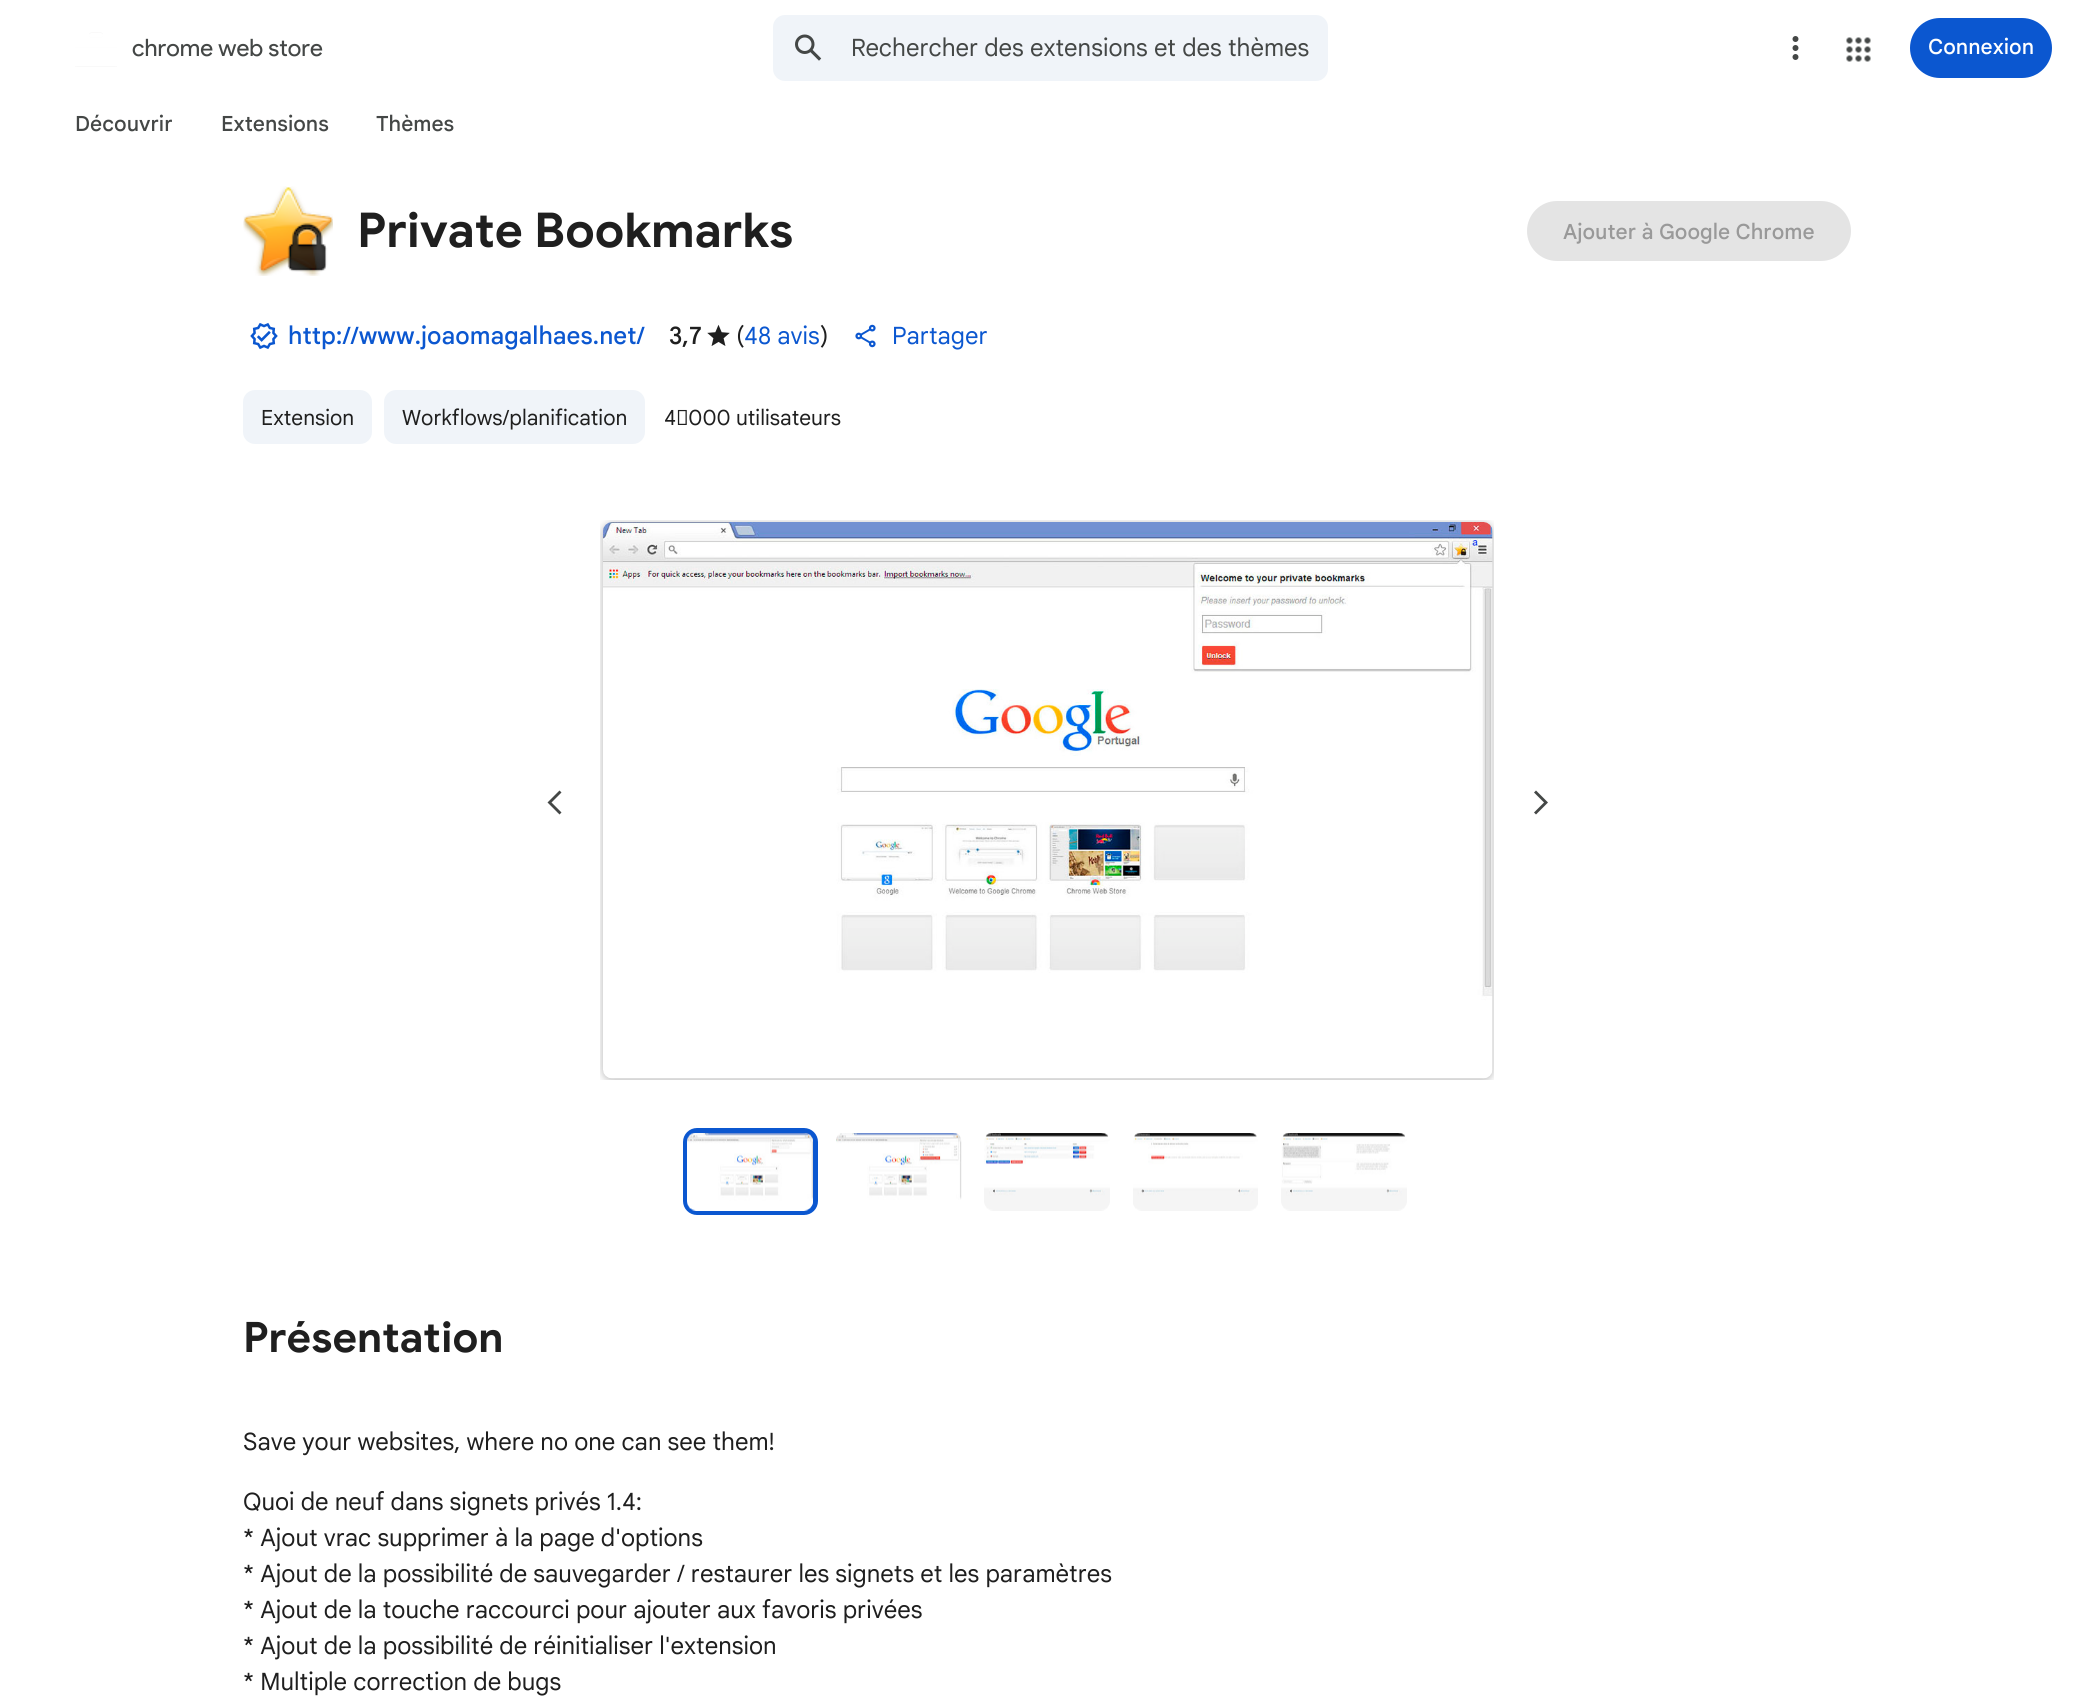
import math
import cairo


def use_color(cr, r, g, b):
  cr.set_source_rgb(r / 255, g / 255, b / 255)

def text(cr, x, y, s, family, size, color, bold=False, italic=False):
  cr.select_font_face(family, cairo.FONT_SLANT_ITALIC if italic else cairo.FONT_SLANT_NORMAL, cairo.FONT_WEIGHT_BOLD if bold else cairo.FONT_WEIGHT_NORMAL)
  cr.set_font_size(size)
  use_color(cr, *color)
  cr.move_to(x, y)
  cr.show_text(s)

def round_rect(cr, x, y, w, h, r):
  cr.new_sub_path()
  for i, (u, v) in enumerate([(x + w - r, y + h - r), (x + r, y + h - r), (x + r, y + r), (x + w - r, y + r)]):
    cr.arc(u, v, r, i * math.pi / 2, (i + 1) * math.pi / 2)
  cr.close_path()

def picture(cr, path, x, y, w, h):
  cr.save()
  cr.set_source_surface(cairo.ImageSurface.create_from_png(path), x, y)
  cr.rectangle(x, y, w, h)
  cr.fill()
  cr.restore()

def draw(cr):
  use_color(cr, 255, 255, 255)
  cr.paint()
  picture(cr, "img_01.png", 75, 32, 42, 35)
  use_color(cr, 240, 244, 249)
  round_rect(cr, 773, 15, 555, 66, 12)
  cr.fill()
  picture(cr, "img_02.png", 795, 34, 27, 27)
  picture(cr, "img_03.png", 1792, 36, 7, 24)
  picture(cr, "img_04.png", 1846, 37, 25, 25)
  use_color(cr, 11, 87, 208)
  round_rect(cr, 1910, 18, 142, 60, 30)
  cr.fill()
  picture(cr, "img_05.png", 243, 186, 90, 90)
  use_color(cr, 228, 228, 228)
  round_rect(cr, 1527, 201, 324, 60, 30)
  cr.fill()
  picture(cr, "img_06.png", 250, 322, 28, 28)
  picture(cr, "img_07.png", 707, 324, 23, 22)
  picture(cr, "img_08.png", 855, 324, 21, 24)
  use_color(cr, 240, 244, 249)
  round_rect(cr, 243, 390, 129, 54, 12)
  cr.fill()
  round_rect(cr, 384, 390, 261, 54, 12)
  cr.fill()
  use_color(cr, 68, 71, 70)
  cr.new_path()
  cr.move_to(561.5, 792.5)
  cr.line_to(559.5, 790.5)
  cr.line_to(547.5, 802.5)
  cr.line_to(559.5, 814.5)
  cr.line_to(561.5, 812.5)
  cr.line_to(551.5, 802.5)
  cr.fill()
  picture(cr, "img_09.png", 600, 520, 894, 560)
  cr.new_path()
  cr.move_to(1534, 812.5)
  cr.line_to(1536, 814.5)
  cr.line_to(1548, 802.5)
  cr.line_to(1536, 790.5)
  cr.line_to(1534, 792.5)
  cr.line_to(1544, 802.5)
  cr.fill()
  round_rect(cr, 685.5, 1130.5, 130, 82, 11.5)
  use_color(cr, 11, 87, 208)
  cr.set_line_width(5)
  cr.stroke()
  picture(cr, "img_10.png", 687, 1133, 126, 78)
  picture(cr, "img_11.png", 836, 1133, 126, 67)
  picture(cr, "img_12.png", 984, 1133, 126, 78)
  picture(cr, "img_13.png", 1133, 1133, 125, 78)
  picture(cr, "img_14.png", 1281, 1133, 126, 78)
  text(cr, 132, 56, "chrome web store", "Product Sans", 24, (68, 71, 70))
  text(cr, 851, 56, "Rechercher des extensions et des thèmes", "Google Sans", 24, (68, 71, 70))
  text(cr, 1928, 54, "Connexion", "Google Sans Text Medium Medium", 21, (255, 255, 255))
  text(cr, 75, 131, "Découvrir", "Google Sans Text Medium Medium", 21, (68, 71, 70))
  text(cr, 221, 131, "Extensions", "Google Sans Text Medium Medium", 21, (68, 71, 70))
  text(cr, 376, 131, "Thèmes", "Google Sans Text Medium Medium", 21, (68, 71, 70))
  text(cr, 357, 247, "Private Bookmarks", "Google Sans", 48, (31, 31, 31), bold=True)
  text(cr, 1563, 239, "Ajouter à Google Chrome", "Google Sans Text Medium Medium", 21, (153, 153, 153))
  text(cr, 288, 344, "http://www.joaomagalhaes.net/", "Google Sans Medium", 24, (11, 87, 208))
  text(cr, 669, 344, "3,7", "Google Sans Medium", 24, (31, 31, 31))
  text(cr, 736, 344, "(", "Google Sans", 24, (31, 31, 31))
  text(cr, 744, 344, "48 avis", "Google Sans", 24, (11, 87, 208))
  text(cr, 820, 344, ")", "Google Sans", 24, (31, 31, 31))
  text(cr, 892, 344, "Partager", "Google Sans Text", 24, (11, 87, 208))
  text(cr, 261, 425, "Extension", "Google Sans", 21, (31, 31, 31))
  text(cr, 402, 425, "Workflows/planification", "Google Sans", 21, (31, 31, 31))
  text(cr, 664, 425, "4 000 utilisateurs", "Google Sans", 21, (31, 31, 31))
  text(cr, 243, 1352, "Présentation", "Google Sans", 42, (31, 31, 31), bold=True)
  text(cr, 243, 1450, "Save your websites, where no one can see them!", "Google Sans", 24, (31, 31, 31))
  text(cr, 243, 1510, "Quoi de neuf dans signets privés 1.4:", "Google Sans", 24, (31, 31, 31))
  text(cr, 243, 1546, "* Ajout vrac supprimer à la page d'options", "Google Sans", 24, (31, 31, 31))
  text(cr, 243, 1582, "* Ajout de la possibilité de sauvegarder / restaurer les signets et les paramètres", "Google Sans", 24, (31, 31, 31))
  text(cr, 243, 1618, "* Ajout de la touche raccourci pour ajouter aux favoris privées", "Google Sans", 24, (31, 31, 31))
  text(cr, 243, 1654, "* Ajout de la possibilité de réinitialiser l'extension", "Google Sans", 24, (31, 31, 31))
  text(cr, 243, 1690, "* Multiple correction de bugs", "Google Sans", 24, (31, 31, 31))


surface = cairo.ImageSurface(cairo.FORMAT_RGB24, 2093, 1707)
cr = cairo.Context(surface)
options = cairo.FontOptions()
options.set_hint_metrics(cairo.HINT_METRICS_OFF)
options.set_hint_style(cairo.HINT_STYLE_NONE)
cr.set_font_options(options)
cr.set_miter_limit(4)
draw(cr)
surface.write_to_png("out.png")
